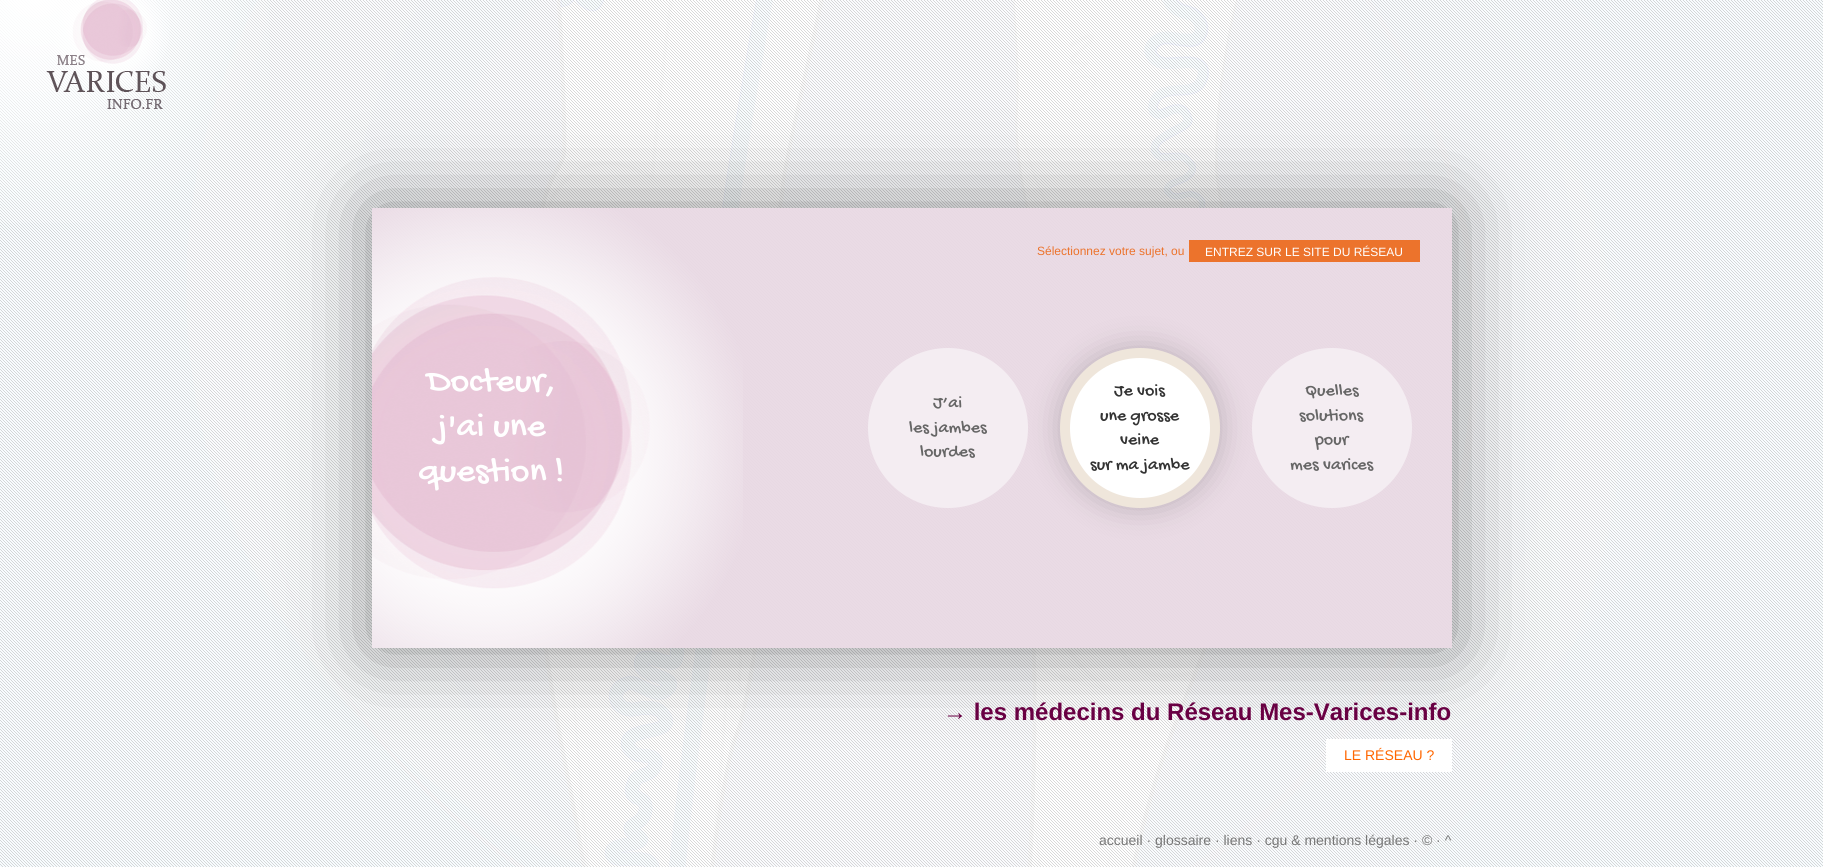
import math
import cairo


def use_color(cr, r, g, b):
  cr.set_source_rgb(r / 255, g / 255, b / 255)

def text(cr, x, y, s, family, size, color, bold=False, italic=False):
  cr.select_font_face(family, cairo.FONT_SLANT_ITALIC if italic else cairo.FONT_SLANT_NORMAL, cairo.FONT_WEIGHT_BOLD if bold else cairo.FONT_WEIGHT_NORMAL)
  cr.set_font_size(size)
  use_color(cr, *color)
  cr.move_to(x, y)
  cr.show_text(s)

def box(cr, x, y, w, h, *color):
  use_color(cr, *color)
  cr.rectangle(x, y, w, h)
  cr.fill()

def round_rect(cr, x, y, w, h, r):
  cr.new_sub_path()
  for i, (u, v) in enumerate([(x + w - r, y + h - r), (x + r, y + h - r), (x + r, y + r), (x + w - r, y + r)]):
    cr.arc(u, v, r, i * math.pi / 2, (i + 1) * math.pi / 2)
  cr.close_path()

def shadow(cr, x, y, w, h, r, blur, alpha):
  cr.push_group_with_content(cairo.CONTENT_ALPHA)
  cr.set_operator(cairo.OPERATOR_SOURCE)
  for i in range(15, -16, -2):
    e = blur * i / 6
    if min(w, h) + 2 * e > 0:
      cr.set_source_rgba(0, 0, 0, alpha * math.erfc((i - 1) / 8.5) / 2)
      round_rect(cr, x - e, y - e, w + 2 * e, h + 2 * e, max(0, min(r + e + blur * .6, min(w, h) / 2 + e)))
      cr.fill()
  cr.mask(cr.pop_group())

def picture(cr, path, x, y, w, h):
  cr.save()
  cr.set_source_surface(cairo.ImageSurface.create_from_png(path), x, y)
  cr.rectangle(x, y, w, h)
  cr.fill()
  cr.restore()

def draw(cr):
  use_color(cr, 248, 252, 254)
  cr.paint()
  picture(cr, "img_01.png", 186, 0, 1520, 867)
  picture(cr, "img_02.png", 0, 0, 1823, 867)
  cr.save()
  cr.set_fill_rule(cairo.FILL_RULE_EVEN_ODD)
  cr.new_path()
  cr.move_to(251, 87)
  cr.line_to(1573, 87)
  cr.line_to(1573, 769)
  cr.line_to(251, 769)
  cr.close_path()
  cr.move_to(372, 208)
  cr.line_to(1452, 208)
  cr.line_to(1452, 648)
  cr.line_to(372, 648)
  cr.close_path()
  cr.clip()
  use_color(cr, 0, 0, 0)
  shadow(cr, 372, 208, 1080, 440, 0, 40, 0.4)
  cr.restore()
  picture(cr, "img_03.png", 0, 0, 269, 223)
  cr.set_source_rgba(0.914, 0.855, 0.894, 0.95)
  cr.rectangle(372, 208, 1080, 440)
  cr.fill()
  picture(cr, "img_04.png", 372, 208, 371, 440)
  box(cr, 1189, 240, 231, 22, 236, 115, 44)
  use_color(cr, 244, 237, 242)
  cr.arc(948, 428, 80, 0, 2 * math.pi)
  cr.fill()
  use_color(cr, 0, 0, 0)
  shadow(cr, 1060, 348, 160, 160, 80, 15, 0.2)
  use_color(cr, 255, 255, 255)
  cr.arc(1140, 428, 75, 0, 2 * math.pi)
  cr.fill_preserve()
  use_color(cr, 239, 230, 219)
  cr.set_line_width(10)
  cr.stroke()
  use_color(cr, 244, 237, 242)
  cr.arc(1332, 428, 80, 0, 2 * math.pi)
  cr.fill()
  box(cr, 1326, 739, 126, 33, 255, 255, 255)
  text(cr, 427, 390, "Docteur,", "Gochi Hand", 36, (255, 255, 255))
  text(cr, 437, 435, "j'ai une", "Gochi Hand", 36, (255, 255, 255))
  text(cr, 418, 480, "question !", "Gochi Hand", 36, (255, 255, 255))
  text(cr, 1037, 255, "Sélectionnez votre sujet, ou", "Liberation Sans", 12, (236, 115, 44))
  text(cr, 1205, 256, "ENTREZ SUR LE SITE DU RÉSEAU", "Liberation Sans", 12, (255, 255, 255))
  text(cr, 933, 407, "J’ai", "Gochi Hand", 18, (102, 102, 102))
  text(cr, 909, 432, "les jambes", "Gochi Hand", 18, (102, 102, 102))
  text(cr, 920, 456, "lourdes", "Gochi Hand", 18, (102, 102, 102))
  text(cr, 1114, 395, "Je vois", "Gochi Hand", 18, (51, 51, 51))
  text(cr, 1100, 420, "une grosse", "Gochi Hand", 18, (51, 51, 51))
  text(cr, 1120, 444, "veine", "Gochi Hand", 18, (51, 51, 51))
  text(cr, 1090, 469, "sur ma jambe", "Gochi Hand", 18, (51, 51, 51))
  text(cr, 1305, 395, "Quelles", "Gochi Hand", 18, (102, 102, 102))
  text(cr, 1299, 420, "solutions", "Gochi Hand", 18, (102, 102, 102))
  text(cr, 1315, 444, "pour", "Gochi Hand", 18, (102, 102, 102))
  text(cr, 1290, 469, "mes varices", "Gochi Hand", 18, (102, 102, 102))
  text(cr, 943, 720, "→ les médecins du Réseau Mes-Varices-info", "Liberation Sans", 24, (105, 0, 67), bold=True)
  text(cr, 1344, 760, "LE RÉSEAU ?", "Liberation Sans", 14, (255, 102, 0))
  text(cr, 1099, 845, "accueil · glossaire · liens · cgu & mentions légales · © · ^", "Liberation Sans", 14, (119, 119, 119))


surface = cairo.ImageSurface(cairo.FORMAT_RGB24, 1823, 867)
cr = cairo.Context(surface)
options = cairo.FontOptions()
options.set_hint_metrics(cairo.HINT_METRICS_OFF)
options.set_hint_style(cairo.HINT_STYLE_NONE)
cr.set_font_options(options)
cr.set_miter_limit(4)
draw(cr)
surface.write_to_png("out.png")
